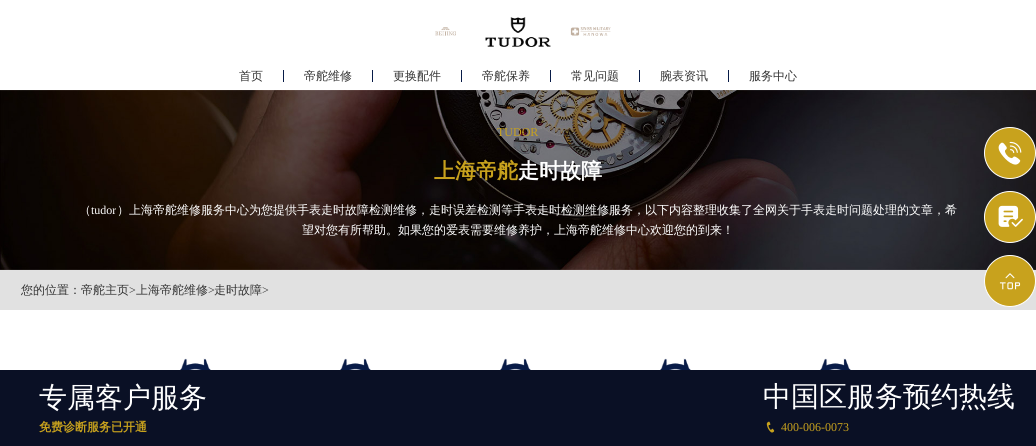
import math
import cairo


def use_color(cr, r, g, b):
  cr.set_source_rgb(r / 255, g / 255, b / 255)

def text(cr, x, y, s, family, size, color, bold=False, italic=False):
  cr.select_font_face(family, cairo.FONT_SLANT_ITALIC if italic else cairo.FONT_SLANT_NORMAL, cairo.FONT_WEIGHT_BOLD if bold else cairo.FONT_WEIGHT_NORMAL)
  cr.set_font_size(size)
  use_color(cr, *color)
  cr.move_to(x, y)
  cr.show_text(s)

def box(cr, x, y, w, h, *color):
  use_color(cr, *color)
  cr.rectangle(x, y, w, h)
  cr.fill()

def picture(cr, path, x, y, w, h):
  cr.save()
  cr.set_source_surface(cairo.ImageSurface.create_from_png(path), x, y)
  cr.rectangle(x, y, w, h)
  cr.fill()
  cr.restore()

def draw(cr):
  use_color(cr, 255, 255, 255)
  cr.paint()
  picture(cr, "img_01.png", 435, 27, 21, 9)
  picture(cr, "img_02.png", 485, 17, 66, 30)
  picture(cr, "img_03.png", 570, 27, 41, 9)
  box(cr, 283, 70, 1, 12, 8, 27, 71)
  box(cr, 372, 70, 1, 12, 8, 27, 71)
  box(cr, 461, 70, 1, 12, 8, 27, 71)
  box(cr, 550, 70, 1, 12, 8, 27, 71)
  box(cr, 639, 70, 1, 12, 8, 27, 71)
  box(cr, 728, 70, 1, 12, 8, 27, 71)
  picture(cr, "img_04.png", 0, 90, 1036, 180)
  use_color(cr, 200, 162, 29)
  cr.arc(1010, 153, 25.5, 0, 2 * math.pi)
  cr.fill_preserve()
  use_color(cr, 255, 255, 255)
  cr.set_line_width(1)
  cr.stroke()
  picture(cr, "img_05.png", 998, 141, 24, 24)
  use_color(cr, 200, 162, 29)
  cr.arc(1010, 217, 25.5, 0, 2 * math.pi)
  cr.fill_preserve()
  use_color(cr, 255, 255, 255)
  cr.stroke()
  picture(cr, "img_06.png", 998, 205, 25, 22)
  box(cr, 0, 270, 1036, 40, 225, 225, 225)
  use_color(cr, 200, 162, 29)
  cr.arc(1010, 281, 25.5, 0, 2 * math.pi)
  cr.fill_preserve()
  use_color(cr, 255, 255, 255)
  cr.stroke()
  picture(cr, "img_07.png", 999, 273, 22, 17)
  picture(cr, "img_08.png", 180, 358, 31, 12)
  picture(cr, "img_09.png", 340, 358, 31, 12)
  picture(cr, "img_09.png", 500, 358, 31, 12)
  picture(cr, "img_09.png", 660, 358, 31, 12)
  picture(cr, "img_09.png", 820, 358, 31, 12)
  box(cr, 0, 370, 1036, 76, 10, 16, 37)
  picture(cr, "img_10.png", 766, 421, 9, 12)
  text(cr, 239, 80, "首页", "WenQuanYi Zen Hei Medium", 12, (51, 51, 51))
  text(cr, 304, 80, "帝舵维修", "WenQuanYi Zen Hei Medium", 12, (51, 51, 51))
  text(cr, 393, 80, "更换配件", "WenQuanYi Zen Hei Medium", 12, (51, 51, 51))
  text(cr, 482, 80, "帝舵保养", "WenQuanYi Zen Hei Medium", 12, (51, 51, 51))
  text(cr, 571, 80, "常见问题", "WenQuanYi Zen Hei Medium", 12, (51, 51, 51))
  text(cr, 660, 80, "腕表资讯", "WenQuanYi Zen Hei Medium", 12, (51, 51, 51))
  text(cr, 749, 80, "服务中心", "WenQuanYi Zen Hei Medium", 12, (51, 51, 51))
  text(cr, 497, 136, "TUDOR", "Liberation Serif", 12, (200, 162, 29))
  text(cr, 434, 178, "上海帝舵", "WenQuanYi Zen Hei", 21, (200, 162, 29), bold=True)
  text(cr, 518, 178, "走时故障", "WenQuanYi Zen Hei", 21, (255, 255, 255), bold=True)
  text(cr, 79, 214, "（", "WenQuanYi Zen Hei Medium", 12, (255, 255, 255))
  text(cr, 91, 214, "tudor", "Liberation Serif", 12, (255, 255, 255))
  text(cr, 117, 214, "）上海帝舵维修服务中心为您提供手表走时故障检测维修，走时误差检测等手表走时检测维修服务，以下内容整理收集了全网关于手表走时问题处理的文章，希", "WenQuanYi Zen Hei Medium", 12, (255, 255, 255))
  text(cr, 302, 234, "望对您有所帮助。如果您的爱表需要维修养护，上海帝舵维修中心欢迎您的到来！", "WenQuanYi Zen Hei Medium", 12, (255, 255, 255))
  text(cr, 21, 294, "您的位置：帝舵主页", "WenQuanYi Zen Hei Medium", 12, (51, 51, 51))
  text(cr, 129, 294, ">", "Liberation Serif", 12, (51, 51, 51))
  text(cr, 136, 294, "上海帝舵维修", "WenQuanYi Zen Hei Medium", 12, (51, 51, 51))
  text(cr, 208, 294, ">", "Liberation Serif", 12, (51, 51, 51))
  text(cr, 214, 294, "走时故障", "WenQuanYi Zen Hei Medium", 12, (51, 51, 51))
  text(cr, 262, 294, ">", "Liberation Serif", 12, (51, 51, 51))
  text(cr, 39, 407, "专属客户服务", "WenQuanYi Zen Hei Medium", 28, (255, 255, 255))
  text(cr, 39, 431, "免费诊断服务已开通", "WenQuanYi Zen Hei", 12, (200, 162, 29), bold=True)
  text(cr, 763, 406, "中国区服务预约热线", "WenQuanYi Zen Hei Medium", 28, (255, 255, 255))
  text(cr, 781, 431, "400-006-0073", "Liberation Serif", 12, (200, 162, 29))


surface = cairo.ImageSurface(cairo.FORMAT_RGB24, 1036, 446)
cr = cairo.Context(surface)
options = cairo.FontOptions()
options.set_hint_metrics(cairo.HINT_METRICS_OFF)
options.set_hint_style(cairo.HINT_STYLE_NONE)
cr.set_font_options(options)
cr.set_miter_limit(4)
draw(cr)
surface.write_to_png("out.png")
